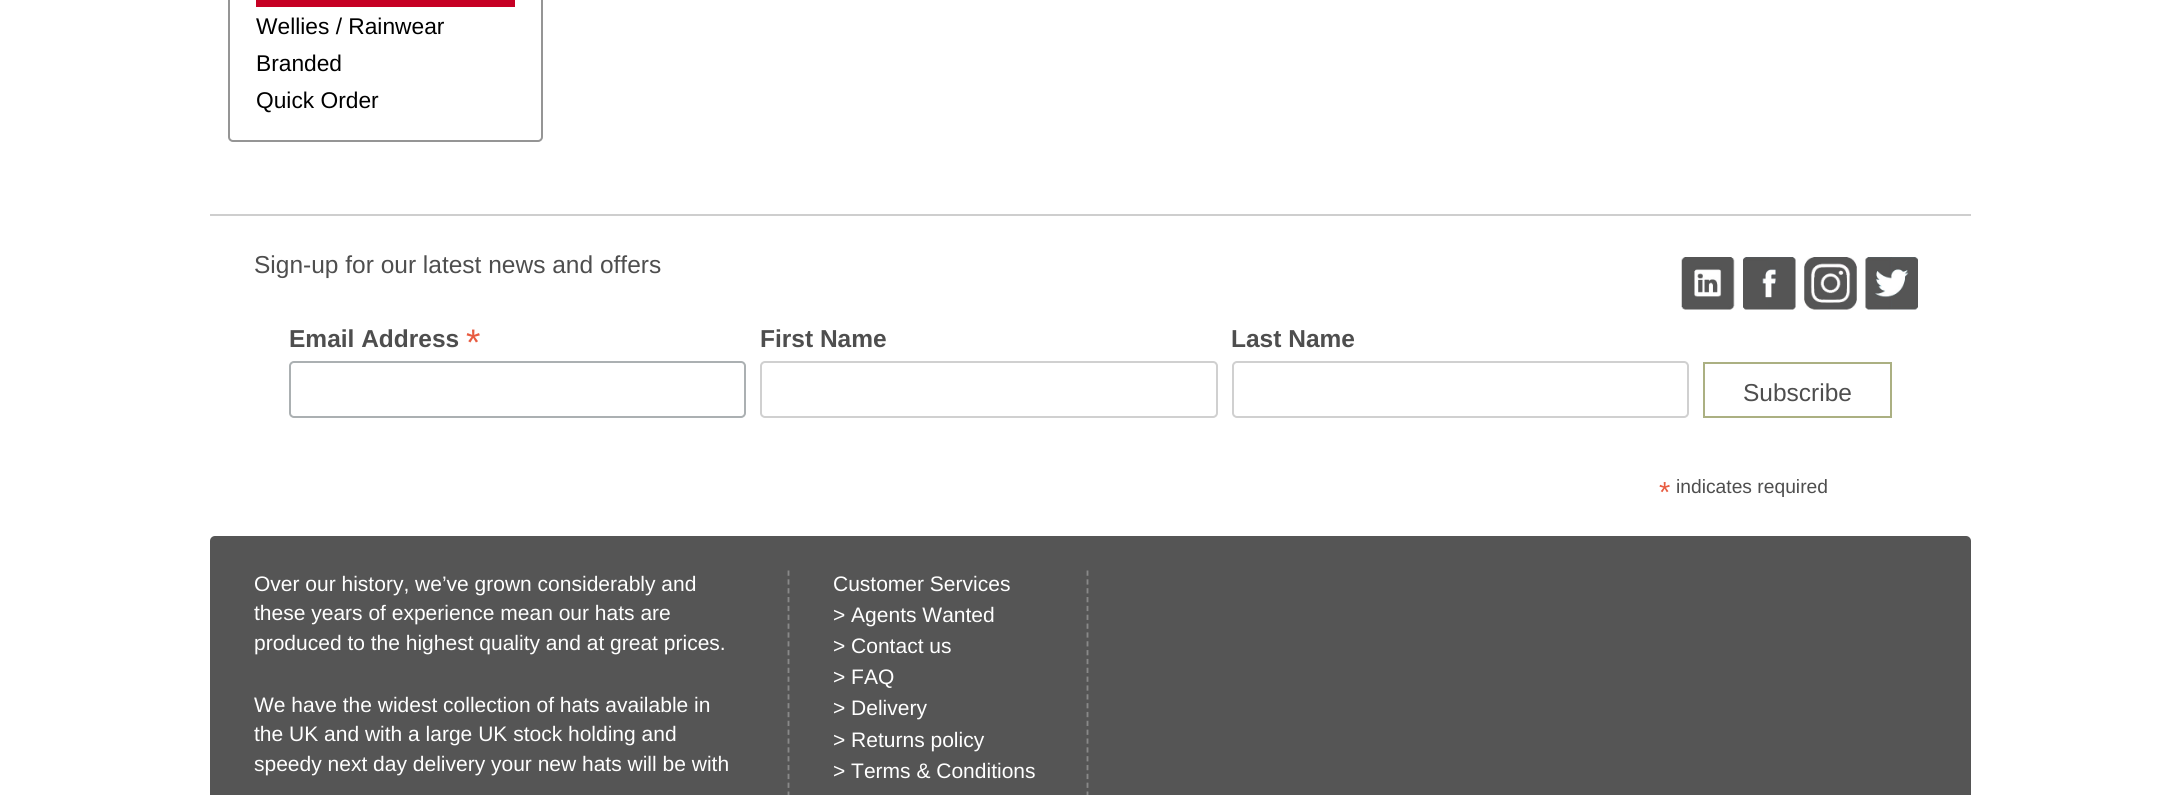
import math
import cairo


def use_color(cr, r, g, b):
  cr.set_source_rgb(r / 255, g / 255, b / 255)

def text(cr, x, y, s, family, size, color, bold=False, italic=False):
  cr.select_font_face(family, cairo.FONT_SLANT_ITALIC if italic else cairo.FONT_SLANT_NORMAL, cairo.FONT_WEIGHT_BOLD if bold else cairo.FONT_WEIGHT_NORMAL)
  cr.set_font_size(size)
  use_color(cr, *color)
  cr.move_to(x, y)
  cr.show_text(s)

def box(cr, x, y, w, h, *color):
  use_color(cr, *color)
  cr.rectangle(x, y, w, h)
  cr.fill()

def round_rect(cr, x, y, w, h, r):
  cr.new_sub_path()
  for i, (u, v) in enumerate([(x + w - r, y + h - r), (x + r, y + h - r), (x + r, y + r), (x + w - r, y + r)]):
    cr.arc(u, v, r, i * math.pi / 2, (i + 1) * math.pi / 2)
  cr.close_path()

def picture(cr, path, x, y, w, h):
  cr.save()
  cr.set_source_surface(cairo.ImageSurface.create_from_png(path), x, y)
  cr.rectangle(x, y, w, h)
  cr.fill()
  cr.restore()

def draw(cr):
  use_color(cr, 255, 255, 255)
  cr.paint()
  round_rect(cr, 229, -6, 313, 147, 4)
  use_color(cr, 149, 149, 149)
  cr.stroke()
  box(cr, 256, 0, 259, 7, 198, 0, 36)
  box(cr, 210, 214, 1761, 2, 206, 206, 206)
  picture(cr, "img_01.png", 1681, 257, 54, 53)
  picture(cr, "img_02.png", 1743, 257, 53, 53)
  picture(cr, "img_03.png", 1804, 257, 53, 53)
  picture(cr, "img_04.png", 1865, 257, 53, 53)
  round_rect(cr, 290, 362, 455, 55, 4)
  use_color(cr, 171, 176, 178)
  cr.stroke()
  round_rect(cr, 761, 362, 456, 55, 4)
  use_color(cr, 208, 208, 208)
  cr.stroke()
  round_rect(cr, 1233, 362, 455, 55, 4)
  cr.stroke()
  cr.rectangle(1704, 363, 187, 54)
  use_color(cr, 171, 176, 130)
  cr.stroke()
  use_color(cr, 85, 85, 85)
  round_rect(cr, 210, 536, 1761, 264, 5)
  cr.fill()
  cr.new_path()
  cr.move_to(788.5, 570.5)
  cr.line_to(788.5, 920.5)
  use_color(cr, 137, 137, 137)
  cr.set_line_width(1.8)
  cr.set_dash([5.25, 3.59])
  cr.stroke()
  cr.new_path()
  cr.move_to(1087.5, 570.5)
  cr.line_to(1087.5, 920.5)
  cr.stroke()
  text(cr, 256, 34, "Wellies / Rainwear", "Liberation Sans", 22.75, (0, 0, 0))
  text(cr, 256, 71, "Branded", "Liberation Sans", 22.75, (0, 0, 0))
  text(cr, 256, 108, "Quick Order", "Liberation Sans", 22.75, (0, 0, 0))
  text(cr, 254, 273, "Sign-up for our latest news and offers", "Liberation Sans", 24.5, (78, 78, 78))
  text(cr, 289, 347, "Email Address", "Liberation Sans", 24.5, (78, 78, 78), bold=True)
  text(cr, 466, 355, "*", "Liberation Sans", 37, (232, 92, 65))
  text(cr, 760, 347, "First Name", "Liberation Sans", 24.5, (78, 78, 78), bold=True)
  text(cr, 1231, 347, "Last Name", "Liberation Sans", 24.5, (78, 78, 78), bold=True)
  text(cr, 1743, 401, "Subscribe", "Liberation Sans", 24.5, (78, 78, 78))
  text(cr, 1659, 502, "*", "Liberation Sans", 29, (232, 92, 65))
  text(cr, 1676, 493, "indicates required", "Liberation Sans", 19.25, (78, 78, 78))
  text(cr, 254, 591, "Over our history, we’ve grown considerably and", "Liberation Sans", 21, (255, 255, 255))
  text(cr, 254, 620, "these years of experience mean our hats are", "Liberation Sans", 21, (255, 255, 255))
  text(cr, 254, 650, "produced to the highest quality and at great prices.", "Liberation Sans", 21, (255, 255, 255))
  text(cr, 254, 712, "We have the widest collection of hats available in", "Liberation Sans", 21, (255, 255, 255))
  text(cr, 254, 741, "the UK and with a large UK stock holding and", "Liberation Sans", 21, (255, 255, 255))
  text(cr, 254, 771, "speedy next day delivery your new hats will be with", "Liberation Sans", 21, (255, 255, 255))
  text(cr, 833, 591, "Customer Services", "Liberation Sans", 21, (255, 255, 255))
  text(cr, 833, 622, "> Agents Wanted", "Liberation Sans", 21, (255, 255, 255))
  text(cr, 833, 653, "> Contact us", "Liberation Sans", 21, (255, 255, 255))
  text(cr, 833, 684, "> FAQ", "Liberation Sans", 21, (255, 255, 255))
  text(cr, 833, 715, "> Delivery", "Liberation Sans", 21, (255, 255, 255))
  text(cr, 833, 747, "> Returns policy", "Liberation Sans", 21, (255, 255, 255))
  text(cr, 833, 778, "> Terms & Conditions", "Liberation Sans", 21, (255, 255, 255))


surface = cairo.ImageSurface(cairo.FORMAT_RGB24, 2180, 795)
cr = cairo.Context(surface)
options = cairo.FontOptions()
options.set_hint_metrics(cairo.HINT_METRICS_OFF)
options.set_hint_style(cairo.HINT_STYLE_NONE)
cr.set_font_options(options)
cr.set_miter_limit(4)
draw(cr)
surface.write_to_png("out.png")
